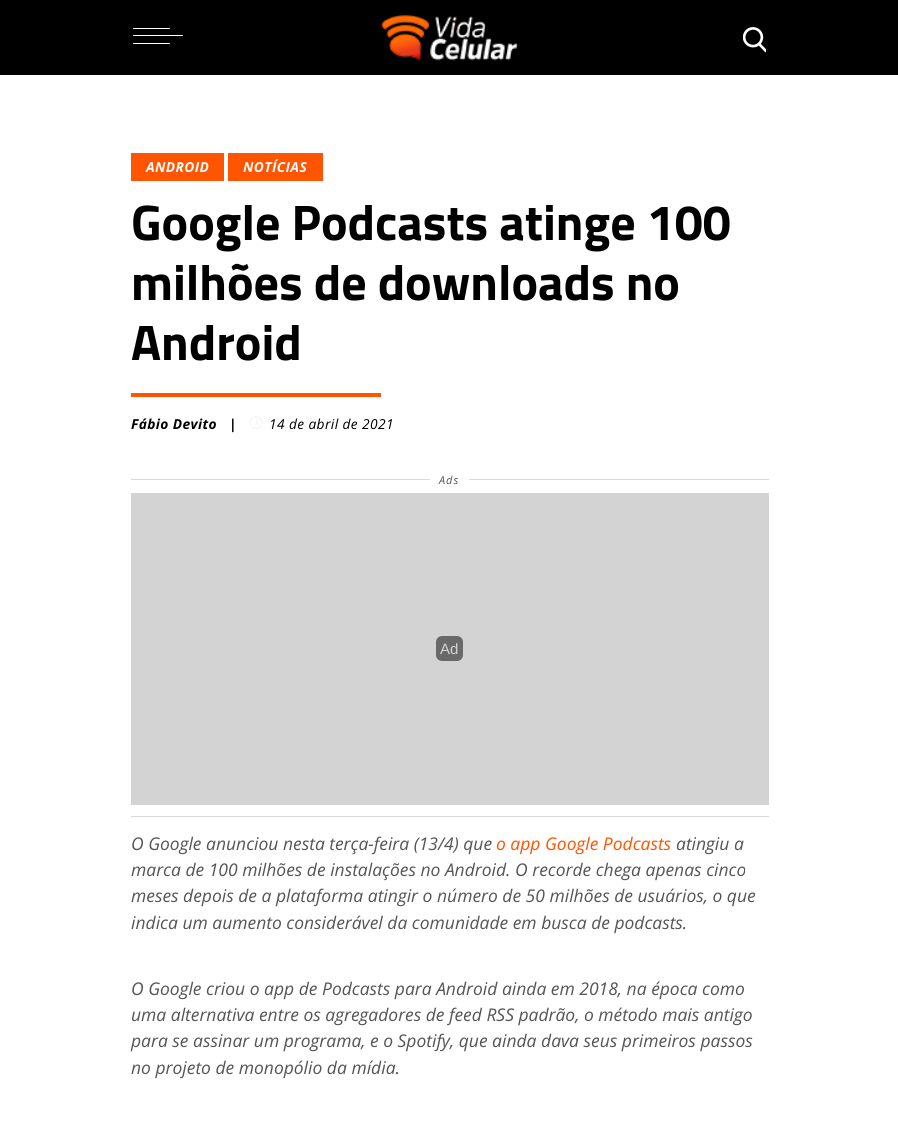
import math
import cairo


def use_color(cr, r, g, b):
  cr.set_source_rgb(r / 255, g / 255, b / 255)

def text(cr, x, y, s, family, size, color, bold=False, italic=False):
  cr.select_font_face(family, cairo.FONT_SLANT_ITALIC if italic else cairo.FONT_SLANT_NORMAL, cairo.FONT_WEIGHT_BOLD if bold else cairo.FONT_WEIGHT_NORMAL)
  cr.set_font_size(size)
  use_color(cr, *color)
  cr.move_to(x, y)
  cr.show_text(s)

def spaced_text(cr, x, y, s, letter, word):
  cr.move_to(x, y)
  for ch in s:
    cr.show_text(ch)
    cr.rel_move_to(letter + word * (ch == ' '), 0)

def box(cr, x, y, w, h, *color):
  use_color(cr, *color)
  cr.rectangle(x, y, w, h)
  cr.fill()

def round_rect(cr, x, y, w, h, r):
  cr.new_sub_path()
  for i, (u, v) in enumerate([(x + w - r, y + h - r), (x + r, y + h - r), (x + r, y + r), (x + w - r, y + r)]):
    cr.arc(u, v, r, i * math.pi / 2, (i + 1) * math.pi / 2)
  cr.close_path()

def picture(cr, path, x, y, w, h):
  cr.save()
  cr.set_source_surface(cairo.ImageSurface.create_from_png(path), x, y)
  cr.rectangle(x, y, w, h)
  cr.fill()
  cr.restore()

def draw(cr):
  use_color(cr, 255, 255, 255)
  cr.paint()
  box(cr, 0, 0, 898, 75, 0, 0, 0)
  use_color(cr, 255, 255, 255)
  round_rect(cr, 133, 28, 37, 1, 0.5)
  cr.fill()
  round_rect(cr, 133, 35, 50, 1, 0.5)
  cr.fill()
  round_rect(cr, 133, 43, 37, 1, 0.5)
  cr.fill()
  picture(cr, "img_01.png", 381, 14, 137, 47)
  picture(cr, "img_02.png", 743, 27, 23, 26)
  box(cr, 131, 153, 93, 28, 255, 85, 0)
  box(cr, 228, 153, 95, 28, 255, 85, 0)
  box(cr, 131, 393, 250, 4, 255, 85, 0)
  picture(cr, "img_03.png", 250, 416, 13, 13)
  box(cr, 131, 479, 299, 1, 217, 217, 217)
  box(cr, 469, 479, 300, 1, 217, 217, 217)
  box(cr, 131, 493, 638, 312, 211, 211, 211)
  use_color(cr, 105, 105, 105)
  round_rect(cr, 436, 636, 27, 25, 6)
  cr.fill()
  box(cr, 131, 816, 638, 1, 217, 217, 217)
  cr.select_font_face("Open Sans", cairo.FONT_SLANT_ITALIC, cairo.FONT_WEIGHT_BOLD)
  cr.set_font_size(13.75)
  use_color(cr, 255, 255, 255)
  spaced_text(cr, 146, 172, "ANDROID", 0.4, 0)
  spaced_text(cr, 243, 172, "NOTÍCIAS", 0.4, 0)
  text(cr, 131, 240, "Google Podcasts atinge 100", "Titillium Web", 50, (0, 0, 0), bold=True)
  text(cr, 131, 300, "milhões de downloads no", "Titillium Web", 50, (0, 0, 0), bold=True)
  text(cr, 131, 360, "Android", "Titillium Web", 50, (0, 0, 0), bold=True)
  cr.select_font_face("Open Sans", cairo.FONT_SLANT_ITALIC, cairo.FONT_WEIGHT_BOLD)
  cr.set_font_size(13.75)
  spaced_text(cr, 131, 429, "Fábio Devito", 0.4, 0)
  spaced_text(cr, 229, 429, "|", 0.4, 0)
  cr.select_font_face("Open Sans", cairo.FONT_SLANT_ITALIC)
  spaced_text(cr, 269, 429, "14 de abril de 2021", 0.4, 0)
  cr.set_font_size(11)
  use_color(cr, 85, 85, 85)
  spaced_text(cr, 439, 484, "Ads", 1, 0)
  text(cr, 440, 654, "Ad", "Liberation Sans", 15, (211, 211, 211))
  text(cr, 131, 850, "O Google anunciou nesta terça-feira (13/4) que", "Open Sans", 17.5, (85, 85, 85), italic=True)
  text(cr, 496, 850, "o app Google Podcasts", "Open Sans", 17.5, (255, 85, 0), italic=True)
  text(cr, 676, 850, "atingiu a", "Open Sans", 17.5, (85, 85, 85), italic=True)
  text(cr, 131, 876, "marca de 100 milhões de instalações no Android. O recorde chega apenas cinco", "Open Sans", 17.5, (85, 85, 85), italic=True)
  text(cr, 131, 902, "meses depois de a plataforma atingir o número de 50 milhões de usuários, o que", "Open Sans", 17.5, (85, 85, 85), italic=True)
  text(cr, 131, 929, "indica um aumento considerável da comunidade em busca de podcasts.", "Open Sans", 17.5, (85, 85, 85), italic=True)
  text(cr, 131, 995, "O Google criou o app de Podcasts para Android ainda em 2018, na época como", "Open Sans", 17.5, (85, 85, 85), italic=True)
  text(cr, 131, 1021, "uma alternativa entre os agregadores de feed RSS padrão, o método mais antigo", "Open Sans", 17.5, (85, 85, 85), italic=True)
  text(cr, 131, 1047, "para se assinar um programa, e o Spotify, que ainda dava seus primeiros passos", "Open Sans", 17.5, (85, 85, 85), italic=True)
  text(cr, 131, 1074, "no projeto de monopólio da mídia.", "Open Sans", 17.5, (85, 85, 85), italic=True)


surface = cairo.ImageSurface(cairo.FORMAT_RGB24, 898, 1126)
cr = cairo.Context(surface)
options = cairo.FontOptions()
options.set_hint_metrics(cairo.HINT_METRICS_OFF)
options.set_hint_style(cairo.HINT_STYLE_NONE)
cr.set_font_options(options)
cr.set_miter_limit(4)
draw(cr)
surface.write_to_png("out.png")
